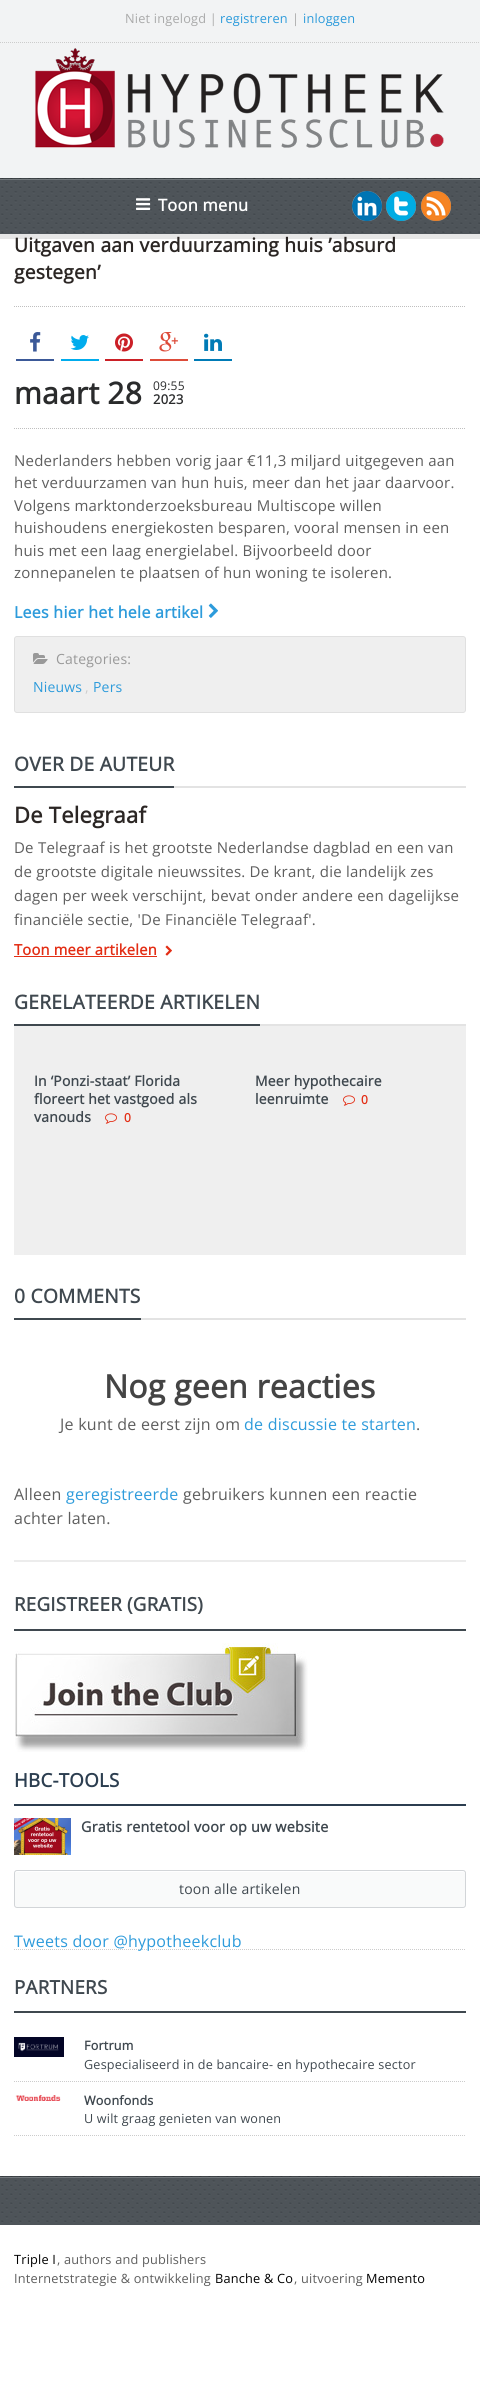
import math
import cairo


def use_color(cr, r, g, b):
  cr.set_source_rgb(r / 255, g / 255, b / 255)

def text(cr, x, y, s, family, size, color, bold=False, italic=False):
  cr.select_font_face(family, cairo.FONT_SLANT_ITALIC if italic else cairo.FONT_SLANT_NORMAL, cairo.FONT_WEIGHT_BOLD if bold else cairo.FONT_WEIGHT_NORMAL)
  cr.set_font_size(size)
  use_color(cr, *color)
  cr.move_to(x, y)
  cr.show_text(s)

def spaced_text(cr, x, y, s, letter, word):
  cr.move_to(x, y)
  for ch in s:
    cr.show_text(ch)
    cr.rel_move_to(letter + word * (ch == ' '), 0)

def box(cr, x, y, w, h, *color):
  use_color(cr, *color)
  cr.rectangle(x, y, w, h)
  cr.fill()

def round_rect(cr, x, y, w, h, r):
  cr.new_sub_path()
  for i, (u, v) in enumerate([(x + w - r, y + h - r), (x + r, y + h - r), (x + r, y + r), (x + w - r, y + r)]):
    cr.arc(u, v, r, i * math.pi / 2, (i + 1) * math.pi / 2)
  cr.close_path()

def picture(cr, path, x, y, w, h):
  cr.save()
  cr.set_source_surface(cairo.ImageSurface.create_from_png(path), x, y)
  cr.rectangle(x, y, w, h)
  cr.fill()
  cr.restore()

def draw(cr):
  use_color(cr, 255, 255, 255)
  cr.paint()
  box(cr, 0, 0, 480, 178, 242, 243, 244)
  cr.new_path()
  cr.move_to(0, 42.5)
  cr.line_to(480, 42.5)
  use_color(cr, 204, 204, 204)
  cr.set_line_width(1)
  cr.set_dash([1, 1])
  cr.stroke()
  picture(cr, "img_01.png", 35, 48, 409, 100)
  cr.set_source_rgba(0, 0, 0, 0.1)
  cr.rectangle(0, 234, 480, 5)
  cr.fill()
  box(cr, 0, 178, 480, 56, 63, 72, 79)
  picture(cr, "img_02.png", 0, 178, 480, 56)
  cr.set_source_rgba(1, 1, 1, 0.2)
  cr.rectangle(0, 179, 480, 1)
  cr.fill()
  cr.set_source_rgba(0, 0, 0, 0.2)
  cr.rectangle(0, 178, 480, 1)
  cr.fill()
  picture(cr, "img_03.png", 136, 198, 15, 12)
  picture(cr, "img_04.png", 352, 191, 30, 30)
  picture(cr, "img_05.png", 386, 191, 30, 30)
  picture(cr, "img_06.png", 421, 191, 30, 30)
  cr.new_path()
  cr.move_to(14, 428.5)
  cr.line_to(466, 428.5)
  use_color(cr, 191, 191, 191)
  cr.stroke()
  cr.new_path()
  cr.move_to(14, 306.5)
  cr.line_to(466, 306.5)
  cr.stroke()
  box(cr, 16, 359, 38, 2, 59, 89, 152)
  picture(cr, "img_07.png", 30, 332, 11, 20)
  box(cr, 61, 359, 38, 2, 0, 172, 237)
  picture(cr, "img_08.png", 70, 335, 19, 15)
  box(cr, 105, 359, 38, 2, 203, 32, 39)
  picture(cr, "img_09.png", 115, 333, 18, 19)
  box(cr, 150, 359, 38, 2, 221, 75, 57)
  picture(cr, "img_10.png", 159, 332, 19, 20)
  box(cr, 194, 359, 38, 2, 0, 123, 182)
  picture(cr, "img_11.png", 204, 333, 18, 18)
  picture(cr, "img_12.png", 208, 603, 10, 15)
  use_color(cr, 239, 239, 239)
  round_rect(cr, 14.5, 636.5, 451, 76, 2.5)
  cr.fill_preserve()
  use_color(cr, 224, 224, 224)
  cr.set_dash([])
  cr.stroke()
  picture(cr, "img_13.png", 33, 653, 15, 11)
  box(cr, 174, 786, 292, 2, 227, 227, 227)
  box(cr, 14, 786, 160, 2, 63, 72, 79)
  box(cr, 14, 956, 143, 1, 227, 46, 21)
  picture(cr, "img_14.png", 165, 945, 7, 11)
  box(cr, 260, 1024, 206, 2, 227, 227, 227)
  box(cr, 14, 1024, 246, 2, 63, 72, 79)
  box(cr, 14, 1026, 452, 229, 239, 239, 239)
  picture(cr, "img_15.png", 105, 1113, 12, 11)
  picture(cr, "img_15.png", 343, 1095, 12, 11)
  box(cr, 141, 1318, 325, 2, 227, 227, 227)
  box(cr, 14, 1318, 127, 2, 63, 72, 79)
  box(cr, 14, 1560, 452, 2, 236, 236, 236)
  box(cr, 14, 1629, 452, 2, 63, 72, 79)
  picture(cr, "img_16.png", 15, 1643, 293, 109)
  box(cr, 14, 1804, 452, 2, 44, 62, 80)
  picture(cr, "img_17.png", 14, 1818, 57, 37)
  use_color(cr, 249, 250, 250)
  round_rect(cr, 14, 1870, 452, 38, 3)
  cr.fill()
  use_color(cr, 255, 255, 255)
  cr.new_path()
  cr.move_to(17, 1872)
  cr.line_to(463, 1872)
  cr.curve_to(464, 1872, 465, 1873, 465, 1874)
  cr.curve_to(465, 1873, 465, 1871, 463, 1871)
  cr.line_to(17, 1871)
  cr.curve_to(15, 1871, 15, 1873, 15, 1874)
  cr.curve_to(15, 1873, 16, 1872, 17, 1872)
  cr.close_path()
  cr.fill()
  round_rect(cr, 14.5, 1870.5, 451, 37, 2.5)
  use_color(cr, 210, 213, 216)
  cr.stroke()
  cr.new_path()
  cr.move_to(14, 1949.5)
  cr.line_to(466, 1949.5)
  use_color(cr, 204, 204, 204)
  cr.set_dash([1, 1])
  cr.stroke()
  box(cr, 14, 2011, 452, 2, 63, 72, 79)
  cr.new_path()
  cr.move_to(14, 2081.5)
  cr.line_to(466, 2081.5)
  use_color(cr, 204, 204, 204)
  cr.stroke()
  picture(cr, "img_18.png", 14, 2037, 50, 20)
  cr.new_path()
  cr.move_to(14, 2135.5)
  cr.line_to(466, 2135.5)
  cr.stroke()
  picture(cr, "img_19.png", 15, 2095, 46, 6)
  box(cr, 0, 2176, 480, 49, 63, 72, 79)
  picture(cr, "img_20.png", 0, 2176, 480, 49)
  cr.set_source_rgba(1, 1, 1, 0.2)
  cr.rectangle(0, 2177, 480, 1)
  cr.fill()
  cr.set_source_rgba(0, 0, 0, 0.2)
  cr.rectangle(0, 2176, 480, 1)
  cr.fill()
  cr.select_font_face("Open Sans")
  cr.set_font_size(12.75)
  use_color(cr, 170, 170, 170)
  spaced_text(cr, 125, 23, "Niet ingelogd |", 0.2, 0)
  use_color(cr, 45, 155, 219)
  spaced_text(cr, 220, 23, "registreren", 0.2, 0)
  use_color(cr, 170, 170, 170)
  spaced_text(cr, 292, 23, "|", 0.2, 0)
  use_color(cr, 45, 155, 219)
  spaced_text(cr, 303, 23, "inloggen", 0.2, 0)
  cr.select_font_face("Open Sans", cairo.FONT_SLANT_NORMAL, cairo.FONT_WEIGHT_BOLD)
  cr.set_font_size(16.5)
  use_color(cr, 255, 255, 255)
  spaced_text(cr, 158, 211, "Toon menu", 0.25, 0)
  cr.set_font_size(19.25)
  use_color(cr, 43, 38, 36)
  spaced_text(cr, 14, 252, "Uitgaven aan verduurzaming huis ’absurd", 0.25, 0)
  spaced_text(cr, 14, 279, "gestegen’", 0.25, 0)
  cr.set_font_size(30)
  use_color(cr, 42, 43, 44)
  spaced_text(cr, 14, 404, "maart 28", 0.25, 0)
  cr.select_font_face("Open Sans")
  cr.set_font_size(12)
  spaced_text(cr, 153, 390, "09:55", 0.25, 0)
  cr.select_font_face("Open Sans", cairo.FONT_SLANT_NORMAL, cairo.FONT_WEIGHT_BOLD)
  cr.set_font_size(13)
  spaced_text(cr, 153, 404, "2023", 0.25, 0)
  cr.select_font_face("Open Sans")
  cr.set_font_size(15)
  use_color(cr, 94, 94, 94)
  spaced_text(cr, 14, 466, "Nederlanders hebben vorig jaar €11,3 miljard uitgegeven aan", 0.23, 0)
  spaced_text(cr, 14, 488, "het verduurzamen van hun huis, meer dan het jaar daarvoor.", 0.23, 0)
  spaced_text(cr, 14, 511, "Volgens marktonderzoeksbureau Multiscope willen", 0.23, 0)
  spaced_text(cr, 14, 533, "huishoudens energiekosten besparen, vooral mensen in een", 0.23, 0)
  spaced_text(cr, 14, 556, "huis met een laag energielabel. Bijvoorbeeld door", 0.23, 0)
  spaced_text(cr, 14, 578, "zonnepanelen te plaatsen of hun woning te isoleren.", 0.23, 0)
  cr.select_font_face("Open Sans", cairo.FONT_SLANT_NORMAL, cairo.FONT_WEIGHT_BOLD)
  cr.set_font_size(16)
  use_color(cr, 45, 155, 219)
  spaced_text(cr, 14, 618, "Lees hier het hele artikel", 0.25, 0)
  cr.select_font_face("Open Sans")
  cr.set_font_size(14)
  use_color(cr, 153, 153, 153)
  spaced_text(cr, 56, 664, "Categories:", 0.2, 0)
  use_color(cr, 45, 155, 219)
  spaced_text(cr, 33, 692, "Nieuws", 0.2, 0)
  use_color(cr, 204, 204, 204)
  spaced_text(cr, 85, 692, ",", 0.2, 0)
  use_color(cr, 45, 155, 219)
  spaced_text(cr, 93, 692, "Pers", 0.2, 0)
  cr.select_font_face("Open Sans", cairo.FONT_SLANT_NORMAL, cairo.FONT_WEIGHT_BOLD)
  cr.set_font_size(19.25)
  use_color(cr, 63, 72, 79)
  spaced_text(cr, 14, 771, "OVER DE AUTEUR", 0.25, 0)
  cr.set_font_size(22)
  use_color(cr, 43, 38, 36)
  spaced_text(cr, 14, 823, "De Telegraaf", 0.25, 0)
  cr.select_font_face("Open Sans")
  cr.set_font_size(15)
  use_color(cr, 94, 94, 94)
  spaced_text(cr, 14, 853, "De Telegraaf is het grootste Nederlandse dagblad en een van", 0.23, 0)
  spaced_text(cr, 14, 877, "de grootste digitale nieuwssites. De krant, die landelijk zes", 0.23, 0)
  spaced_text(cr, 14, 901, "dagen per week verschijnt, bevat onder andere een dagelijkse", 0.23, 0)
  spaced_text(cr, 14, 925, "financiële sectie, 'De Financiële Telegraaf'.", 0.23, 0)
  cr.select_font_face("Open Sans", cairo.FONT_SLANT_NORMAL, cairo.FONT_WEIGHT_BOLD)
  cr.set_font_size(14.75)
  use_color(cr, 227, 46, 21)
  spaced_text(cr, 14, 955, "Toon meer artikelen", 0.2, 0)
  cr.set_font_size(19.25)
  use_color(cr, 63, 72, 79)
  spaced_text(cr, 14, 1009, "GERELATEERDE ARTIKELEN", 0.25, 0)
  cr.set_font_size(14)
  spaced_text(cr, 34, 1086, "In ‘Ponzi-staat’ Florida", 0.2, 0)
  spaced_text(cr, 34, 1104, "floreert het vastgoed als", 0.2, 0)
  spaced_text(cr, 34, 1122, "vanouds", 0.2, 0)
  text(cr, 124, 1122, "0", "Open Sans", 12, (227, 46, 21), bold=True)
  cr.set_font_size(14)
  use_color(cr, 63, 72, 79)
  spaced_text(cr, 255, 1086, "Meer hypothecaire", 0.2, 0)
  spaced_text(cr, 255, 1104, "leenruimte", 0.2, 0)
  text(cr, 361, 1104, "0", "Open Sans", 12, (227, 46, 21), bold=True)
  cr.set_font_size(19.25)
  use_color(cr, 63, 72, 79)
  spaced_text(cr, 14, 1303, "0 COMMENTS", 0.25, 0)
  cr.set_font_size(32)
  use_color(cr, 68, 68, 68)
  spaced_text(cr, 104, 1398, "Nog geen reacties", 0.25, 0)
  cr.select_font_face("Open Sans")
  cr.set_font_size(16)
  use_color(cr, 94, 94, 94)
  spaced_text(cr, 60, 1430, "Je kunt de eerst zijn om", 0.25, 0)
  use_color(cr, 45, 155, 219)
  spaced_text(cr, 244, 1430, "de discussie te starten", 0.25, 0)
  use_color(cr, 94, 94, 94)
  spaced_text(cr, 416, 1430, ".", 0.25, 0)
  spaced_text(cr, 14, 1500, "Alleen", 0.25, 0)
  use_color(cr, 45, 155, 219)
  spaced_text(cr, 66, 1500, "geregistreerde", 0.25, 0)
  use_color(cr, 94, 94, 94)
  spaced_text(cr, 183, 1500, "gebruikers kunnen een reactie", 0.25, 0)
  spaced_text(cr, 14, 1524, "achter laten.", 0.25, 0)
  cr.select_font_face("Open Sans", cairo.FONT_SLANT_NORMAL, cairo.FONT_WEIGHT_BOLD)
  cr.set_font_size(18.75)
  use_color(cr, 63, 72, 79)
  spaced_text(cr, 14, 1611, "REGISTREER (GRATIS)", 0.25, 0)
  use_color(cr, 44, 62, 80)
  spaced_text(cr, 14, 1787, "HBC-TOOLS", 0.25, 0)
  cr.set_font_size(14.4)
  use_color(cr, 63, 72, 79)
  spaced_text(cr, 81, 1832, "Gratis rentetool voor op uw website", 0.2, 0)
  cr.select_font_face("Open Sans")
  cr.set_font_size(14)
  spaced_text(cr, 179, 1894, "toon alle artikelen", 0.2, 0)
  cr.set_font_size(16)
  use_color(cr, 45, 155, 219)
  spaced_text(cr, 14, 1947, "Tweets door @hypotheekclub", 0.25, 0)
  cr.select_font_face("Open Sans", cairo.FONT_SLANT_NORMAL, cairo.FONT_WEIGHT_BOLD)
  cr.set_font_size(18.75)
  use_color(cr, 63, 72, 79)
  spaced_text(cr, 14, 1994, "PARTNERS", 0.25, 0)
  cr.set_font_size(12.6)
  spaced_text(cr, 84, 2050, "Fortrum", 0.2, 0)
  cr.select_font_face("Open Sans")
  spaced_text(cr, 84, 2069, "Gespecialiseerd in de bancaire- en hypothecaire sector", 0.2, 0)
  cr.select_font_face("Open Sans", cairo.FONT_SLANT_NORMAL, cairo.FONT_WEIGHT_BOLD)
  spaced_text(cr, 84, 2105, "Woonfonds", 0.2, 0)
  cr.select_font_face("Open Sans")
  spaced_text(cr, 84, 2123, "U wilt graag genieten van wonen", 0.2, 0)
  cr.set_font_size(12.75)
  use_color(cr, 0, 0, 0)
  spaced_text(cr, 14, 2264, "Triple I", 0.2, 0)
  use_color(cr, 94, 94, 94)
  spaced_text(cr, 57, 2264, ", authors and publishers", 0.2, 0)
  spaced_text(cr, 14, 2283, "Internetstrategie & ontwikkeling", 0.2, 0)
  use_color(cr, 0, 0, 0)
  spaced_text(cr, 215, 2283, "Banche & Co", 0.2, 0)
  use_color(cr, 94, 94, 94)
  spaced_text(cr, 294, 2283, ", uitvoering", 0.2, 0)
  use_color(cr, 0, 0, 0)
  spaced_text(cr, 366, 2283, "Memento", 0.2, 0)


surface = cairo.ImageSurface(cairo.FORMAT_RGB24, 480, 2381)
cr = cairo.Context(surface)
options = cairo.FontOptions()
options.set_hint_metrics(cairo.HINT_METRICS_OFF)
options.set_hint_style(cairo.HINT_STYLE_NONE)
cr.set_font_options(options)
cr.set_miter_limit(4)
draw(cr)
surface.write_to_png("out.png")
